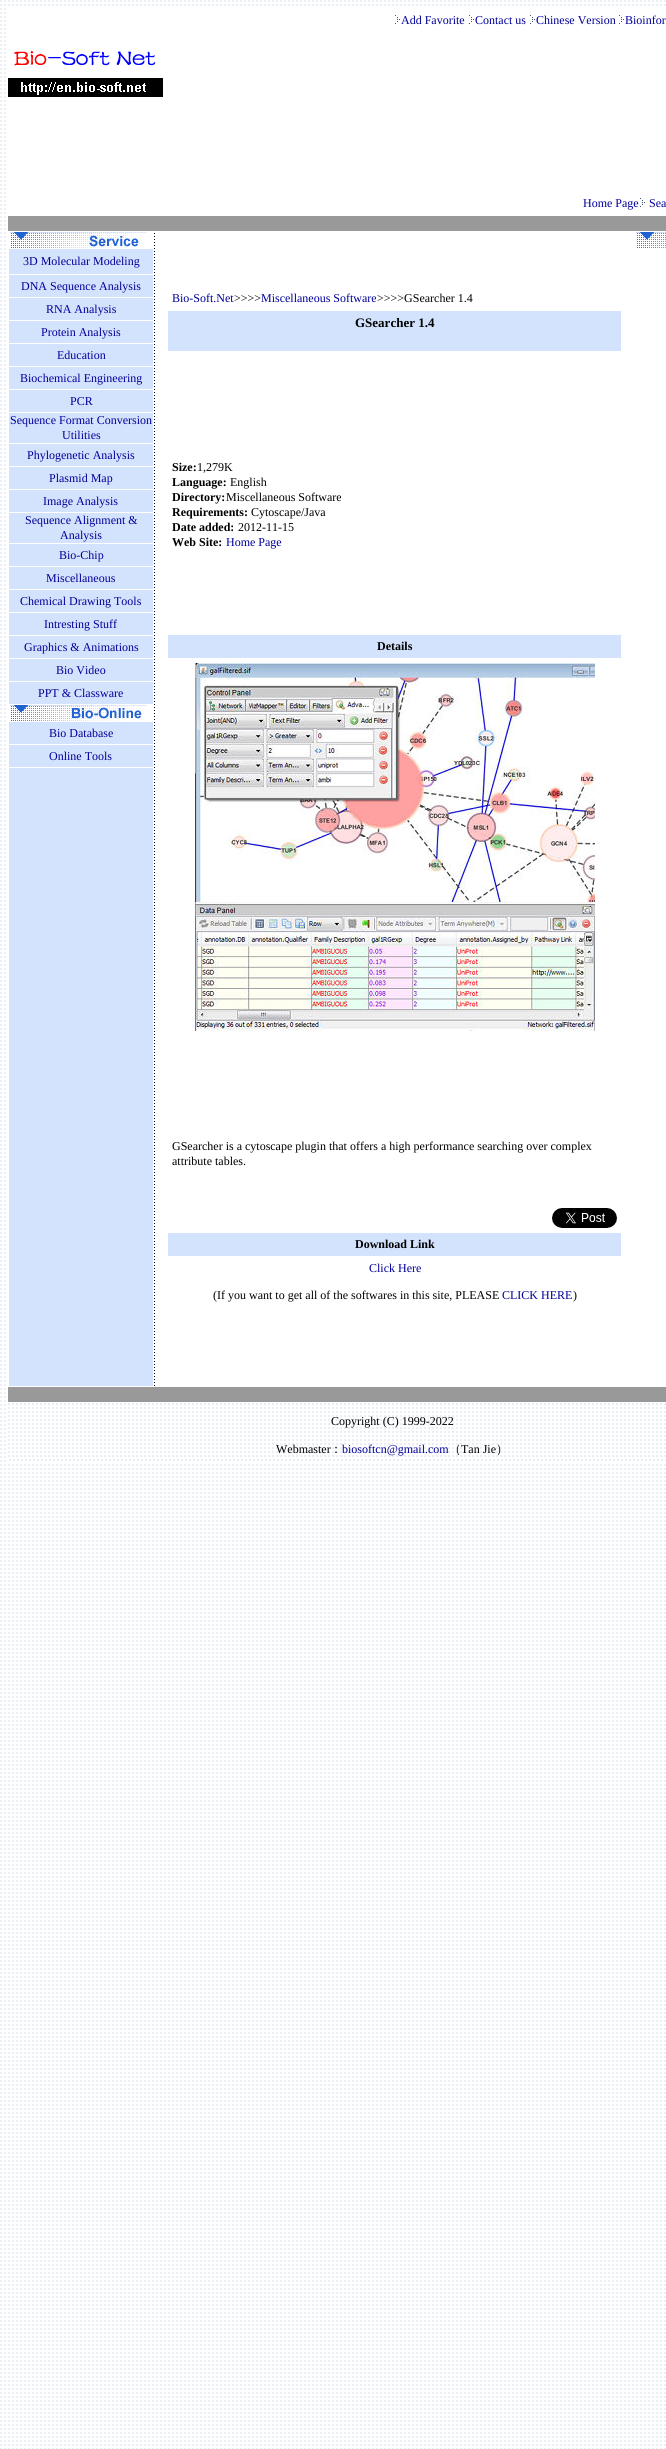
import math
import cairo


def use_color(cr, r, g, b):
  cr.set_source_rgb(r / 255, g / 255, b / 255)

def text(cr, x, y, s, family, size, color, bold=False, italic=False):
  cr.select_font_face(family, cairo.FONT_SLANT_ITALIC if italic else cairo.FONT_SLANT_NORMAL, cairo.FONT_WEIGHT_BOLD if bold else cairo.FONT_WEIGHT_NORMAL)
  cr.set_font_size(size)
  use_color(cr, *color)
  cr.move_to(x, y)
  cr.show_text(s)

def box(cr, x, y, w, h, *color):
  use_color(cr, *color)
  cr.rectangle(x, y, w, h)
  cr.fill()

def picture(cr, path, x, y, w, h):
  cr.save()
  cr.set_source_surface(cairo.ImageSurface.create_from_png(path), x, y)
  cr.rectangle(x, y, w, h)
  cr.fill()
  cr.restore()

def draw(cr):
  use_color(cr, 255, 255, 255)
  cr.paint()
  picture(cr, "img_01.png", 0, 0, 666, 2449)
  box(cr, 8, 8, 658, 182, 255, 255, 255)
  picture(cr, "img_02.png", 395, 15, 5, 9)
  picture(cr, "img_02.png", 469, 15, 5, 9)
  picture(cr, "img_02.png", 530, 15, 5, 9)
  picture(cr, "img_02.png", 619, 15, 5, 9)
  picture(cr, "img_03.png", 8, 50, 155, 47)
  box(cr, 8, 192, 658, 22, 255, 255, 255)
  picture(cr, "img_02.png", 640, 198, 5, 9)
  box(cr, 8, 216, 658, 15, 153, 153, 153)
  box(cr, 8, 232, 658, 1154, 255, 255, 255)
  box(cr, 9, 249, 144, 25, 212, 227, 253)
  box(cr, 9, 275, 144, 22, 212, 227, 253)
  box(cr, 9, 298, 144, 22, 212, 227, 253)
  picture(cr, "img_04.png", 10, 232, 137, 16)
  picture(cr, "img_05.png", 154, 233, 1, 1153)
  box(cr, 168, 311, 453, 40, 212, 227, 253)
  box(cr, 168, 635, 453, 23, 212, 227, 253)
  picture(cr, "img_06.png", 195, 663, 400, 368)
  picture(cr, "img_07.png", 552, 1208, 65, 20)
  box(cr, 168, 1233, 453, 23, 212, 227, 253)
  picture(cr, "img_08.png", 636, 232, 30, 16)
  box(cr, 9, 321, 144, 22, 212, 227, 253)
  box(cr, 9, 344, 144, 22, 212, 227, 253)
  box(cr, 9, 367, 144, 22, 212, 227, 253)
  box(cr, 9, 390, 144, 22, 212, 227, 253)
  box(cr, 9, 413, 144, 30, 212, 227, 253)
  box(cr, 9, 444, 144, 22, 212, 227, 253)
  box(cr, 9, 467, 144, 22, 212, 227, 253)
  box(cr, 9, 490, 144, 22, 212, 227, 253)
  box(cr, 9, 513, 144, 30, 212, 227, 253)
  box(cr, 9, 544, 144, 22, 212, 227, 253)
  box(cr, 9, 567, 144, 22, 212, 227, 253)
  box(cr, 9, 590, 144, 22, 212, 227, 253)
  box(cr, 9, 613, 144, 22, 212, 227, 253)
  box(cr, 9, 636, 144, 22, 212, 227, 253)
  box(cr, 9, 659, 144, 22, 212, 227, 253)
  box(cr, 9, 682, 144, 22, 212, 227, 253)
  picture(cr, "img_09.png", 10, 705, 137, 16)
  box(cr, 9, 722, 144, 22, 212, 227, 253)
  box(cr, 9, 745, 144, 22, 212, 227, 253)
  box(cr, 9, 768, 144, 618, 212, 227, 253)
  box(cr, 8, 1457, 658, 1, 255, 255, 255)
  picture(cr, "img_10.png", 8, 1402, 658, 55)
  box(cr, 8, 1387, 658, 15, 153, 153, 153)
  box(cr, 8, 1460, 658, 2, 255, 255, 255)
  picture(cr, "img_11.png", 9, 1459, 657, 2)
  text(cr, 401, 24, "Add Favorite", "Liberation Serif", 12, (0, 0, 153))
  text(cr, 475, 24, "Contact us", "Liberation Serif", 12, (0, 0, 153))
  text(cr, 536, 24, "Chinese Version", "Liberation Serif", 12, (0, 0, 153))
  text(cr, 625, 24, "Bioinfor", "Liberation Serif", 12, (0, 0, 153))
  text(cr, 583, 207, "Home Page", "Liberation Serif", 12, (0, 0, 153))
  text(cr, 649, 207, "Sea", "Liberation Serif", 12, (0, 0, 153))
  text(cr, 23, 265, "3D Molecular Modeling", "Liberation Serif", 12, (0, 0, 153))
  text(cr, 21, 290, "DNA Sequence Analysis", "Liberation Serif", 12, (0, 0, 153))
  text(cr, 46, 313, "RNA Analysis", "Liberation Serif", 12, (0, 0, 153))
  text(cr, 172, 302, "Bio-Soft.Net", "Liberation Serif", 12, (0, 0, 153))
  text(cr, 234, 302, ">>>>", "Liberation Serif", 12, (0, 0, 0))
  text(cr, 261, 302, "Miscellaneous Software", "Liberation Serif", 12, (0, 0, 153))
  text(cr, 377, 302, ">>>>GSearcher 1.4", "Liberation Serif", 12, (0, 0, 0))
  text(cr, 355, 327, "GSearcher 1.4", "Liberation Serif", 13, (0, 0, 0), bold=True)
  text(cr, 172, 471, "Size:", "Liberation Serif", 12, (0, 0, 0), bold=True)
  text(cr, 197, 471, "1,279K", "Liberation Serif", 12, (0, 0, 0))
  text(cr, 172, 486, "Language:", "Liberation Serif", 12, (0, 0, 0), bold=True)
  text(cr, 230, 486, "English", "Liberation Serif", 12, (0, 0, 0))
  text(cr, 172, 501, "Directory:", "Liberation Serif", 12, (0, 0, 0), bold=True)
  text(cr, 226, 501, "Miscellaneous Software", "Liberation Serif", 12, (0, 0, 0))
  text(cr, 172, 516, "Requirements:", "Liberation Serif", 12, (0, 0, 0), bold=True)
  text(cr, 251, 516, "Cytoscape/Java", "Liberation Serif", 12, (0, 0, 0))
  text(cr, 172, 531, "Date added:", "Liberation Serif", 12, (0, 0, 0), bold=True)
  text(cr, 238, 531, "2012-11-15", "Liberation Serif", 12, (0, 0, 0))
  text(cr, 172, 546, "Web Site:", "Liberation Serif", 12, (0, 0, 0), bold=True)
  text(cr, 226, 546, "Home Page", "Liberation Serif", 12, (0, 0, 153))
  text(cr, 377, 650, "Details", "Liberation Serif", 12, (0, 0, 0), bold=True)
  text(cr, 172, 1150, "GSearcher is a cytoscape plugin that offers a high performance searching over complex", "Liberation Serif", 12, (0, 0, 0))
  text(cr, 172, 1165, "attribute tables.", "Liberation Serif", 12, (0, 0, 0))
  text(cr, 355, 1248, "Download Link", "Liberation Serif", 12, (0, 0, 0), bold=True)
  text(cr, 369, 1272, "Click Here", "Liberation Serif", 12, (0, 0, 153))
  text(cr, 213, 1299, "(If you want to get all of the softwares in this site, PLEASE", "Liberation Serif", 12, (0, 0, 0))
  text(cr, 502, 1299, "CLICK HERE", "Liberation Serif", 12, (0, 0, 153))
  text(cr, 573, 1299, ")", "Liberation Serif", 12, (0, 0, 0))
  text(cr, 41, 336, "Protein Analysis", "Liberation Serif", 12, (0, 0, 153))
  text(cr, 57, 359, "Education", "Liberation Serif", 12, (0, 0, 153))
  text(cr, 20, 382, "Biochemical Engineering", "Liberation Serif", 12, (0, 0, 153))
  text(cr, 70, 405, "PCR", "Liberation Serif", 12, (0, 0, 153))
  text(cr, 10, 424, "Sequence Format Conversion", "Liberation Serif", 12, (0, 0, 153))
  text(cr, 62, 439, "Utilities", "Liberation Serif", 12, (0, 0, 153))
  text(cr, 27, 459, "Phylogenetic Analysis", "Liberation Serif", 12, (0, 0, 153))
  text(cr, 49, 482, "Plasmid Map", "Liberation Serif", 12, (0, 0, 153))
  text(cr, 43, 505, "Image Analysis", "Liberation Serif", 12, (0, 0, 153))
  text(cr, 25, 524, "Sequence Alignment &", "Liberation Serif", 12, (0, 0, 153))
  text(cr, 60, 539, "Analysis", "Liberation Serif", 12, (0, 0, 153))
  text(cr, 59, 559, "Bio-Chip", "Liberation Serif", 12, (0, 0, 153))
  text(cr, 46, 582, "Miscellaneous", "Liberation Serif", 12, (0, 0, 153))
  text(cr, 20, 605, "Chemical Drawing Tools", "Liberation Serif", 12, (0, 0, 153))
  text(cr, 44, 628, "Intresting Stuff", "Liberation Serif", 12, (0, 0, 153))
  text(cr, 24, 651, "Graphics & Animations", "Liberation Serif", 12, (0, 0, 153))
  text(cr, 56, 674, "Bio Video", "Liberation Serif", 12, (0, 0, 153))
  text(cr, 38, 697, "PPT & Classware", "Liberation Serif", 12, (0, 0, 153))
  text(cr, 49, 737, "Bio Database", "Liberation Serif", 12, (0, 0, 153))
  text(cr, 49, 760, "Online Tools", "Liberation Serif", 12, (0, 0, 153))
  text(cr, 331, 1425, "Copyright (C) 1999-2022", "Liberation Serif", 12, (0, 0, 0))
  text(cr, 276, 1453, "Webmaster", "Liberation Serif", 12, (0, 0, 0))
  text(cr, 330, 1453, "：", "WenQuanYi Zen Hei Medium", 12, (0, 0, 0))
  text(cr, 342, 1453, "biosoftcn@gmail.com", "Liberation Serif", 12, (0, 0, 153))
  text(cr, 449, 1453, "（", "WenQuanYi Zen Hei Medium", 12, (0, 0, 0))
  text(cr, 461, 1453, "Tan Jie", "Liberation Serif", 12, (0, 0, 0))
  text(cr, 496, 1453, "）", "WenQuanYi Zen Hei Medium", 12, (0, 0, 0))


surface = cairo.ImageSurface(cairo.FORMAT_RGB24, 666, 2449)
cr = cairo.Context(surface)
options = cairo.FontOptions()
options.set_hint_metrics(cairo.HINT_METRICS_OFF)
options.set_hint_style(cairo.HINT_STYLE_NONE)
cr.set_font_options(options)
cr.set_miter_limit(4)
draw(cr)
surface.write_to_png("out.png")
